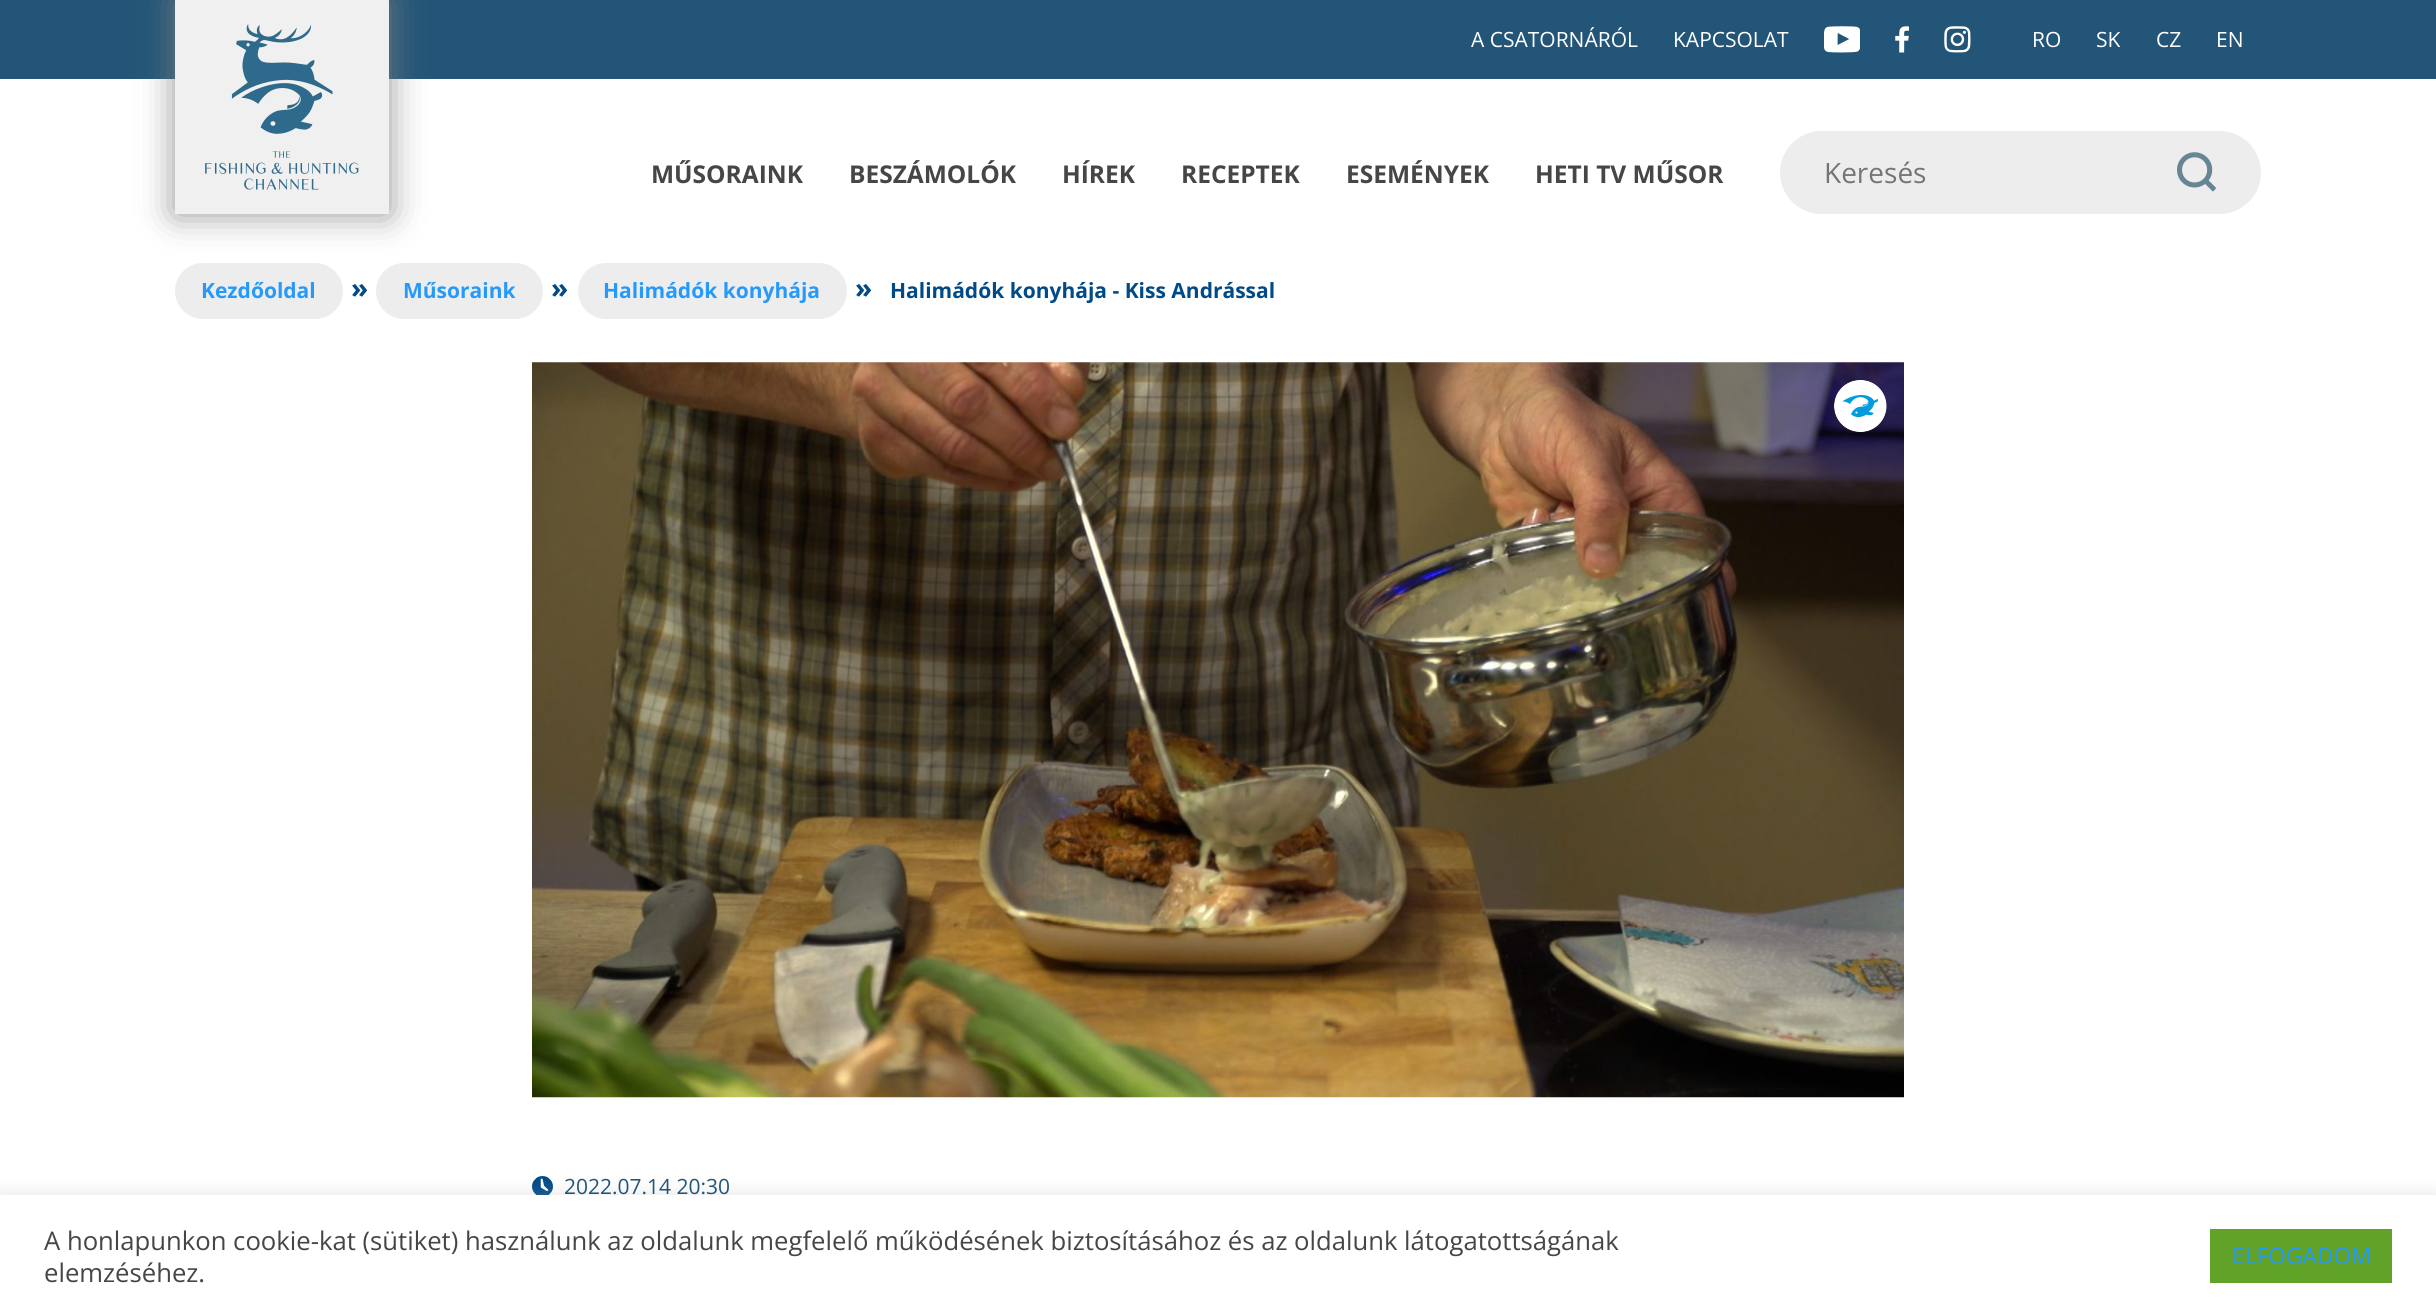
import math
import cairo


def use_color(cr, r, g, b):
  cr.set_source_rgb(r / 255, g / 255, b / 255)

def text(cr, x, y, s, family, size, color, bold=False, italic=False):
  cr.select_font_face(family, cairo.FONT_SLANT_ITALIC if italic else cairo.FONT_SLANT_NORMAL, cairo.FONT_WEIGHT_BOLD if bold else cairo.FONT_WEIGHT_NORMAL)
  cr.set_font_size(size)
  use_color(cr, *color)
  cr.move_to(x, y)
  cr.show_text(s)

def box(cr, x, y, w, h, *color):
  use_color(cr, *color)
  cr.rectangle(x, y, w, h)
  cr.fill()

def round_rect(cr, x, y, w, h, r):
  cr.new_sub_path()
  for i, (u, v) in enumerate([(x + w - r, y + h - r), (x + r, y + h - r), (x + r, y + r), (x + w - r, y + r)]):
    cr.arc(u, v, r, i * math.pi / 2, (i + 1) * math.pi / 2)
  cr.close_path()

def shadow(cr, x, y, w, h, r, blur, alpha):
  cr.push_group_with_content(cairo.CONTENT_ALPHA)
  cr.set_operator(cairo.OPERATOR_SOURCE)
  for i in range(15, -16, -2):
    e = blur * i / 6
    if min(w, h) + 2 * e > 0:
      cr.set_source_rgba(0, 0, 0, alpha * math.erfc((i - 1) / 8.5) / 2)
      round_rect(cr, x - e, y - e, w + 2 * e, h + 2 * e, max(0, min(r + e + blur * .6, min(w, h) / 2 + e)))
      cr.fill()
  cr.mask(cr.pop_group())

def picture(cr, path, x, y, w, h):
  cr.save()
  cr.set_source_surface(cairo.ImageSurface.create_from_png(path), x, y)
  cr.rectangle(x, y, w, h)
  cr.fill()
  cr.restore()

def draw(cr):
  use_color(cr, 255, 255, 255)
  cr.paint()
  box(cr, 0, 0, 2436, 79, 34, 85, 119)
  picture(cr, "img_01.png", 1824, 26, 36, 27)
  picture(cr, "img_02.png", 1895, 26, 14, 27)
  picture(cr, "img_03.png", 1944, 26, 27, 27)
  use_color(cr, 237, 237, 237)
  round_rect(cr, 175, 263, 168, 56, 28)
  cr.fill()
  round_rect(cr, 376, 263, 167, 56, 28)
  cr.fill()
  use_color(cr, 130, 130, 130)
  shadow(cr, 175, 0, 214, 214, 0, 17.5, 0.86)
  picture(cr, "img_04.png", 175, 0, 214, 214)
  use_color(cr, 237, 237, 237)
  round_rect(cr, 1780, 131, 481, 83, 41.5)
  cr.fill()
  picture(cr, "img_05.png", 2177, 152, 39, 40)
  round_rect(cr, 578, 263, 269, 56, 28)
  cr.fill()
  picture(cr, "img_06.png", 532, 362, 1372, 736)
  picture(cr, "img_07.png", 1834, 380, 53, 52)
  picture(cr, "img_08.png", 532, 1176, 21, 19)
  use_color(cr, 172, 171, 171)
  shadow(cr, 0, 1194, 2436, 120, 0, 9, 0.3)
  box(cr, 0, 1195, 2436, 120, 255, 255, 255)
  box(cr, 2210, 1229, 182, 54, 97, 162, 41)
  text(cr, 1471, 47, "A CSATORNÁRÓL", "Open Sans", 21, (255, 255, 255))
  text(cr, 1673, 47, "KAPCSOLAT", "Open Sans", 21, (255, 255, 255))
  text(cr, 2032, 47, "RO", "Open Sans", 21, (255, 255, 255))
  text(cr, 2096, 47, "SK", "Open Sans", 21, (255, 255, 255))
  text(cr, 2156, 47, "CZ", "Open Sans", 21, (255, 255, 255))
  text(cr, 2216, 47, "EN", "Open Sans", 21, (255, 255, 255))
  text(cr, 651, 183, "MŰSORAINK", "Open Sans", 24.5, (70, 70, 70), bold=True)
  text(cr, 849, 183, "BESZÁMOLÓK", "Open Sans", 24.5, (70, 70, 70), bold=True)
  text(cr, 1062, 183, "HÍREK", "Open Sans", 24.5, (70, 70, 70), bold=True)
  text(cr, 1181, 183, "RECEPTEK", "Open Sans", 24.5, (70, 70, 70), bold=True)
  text(cr, 1346, 183, "ESEMÉNYEK", "Open Sans", 24.5, (70, 70, 70), bold=True)
  text(cr, 1535, 183, "HETI TV MŰSOR", "Open Sans", 24.5, (70, 70, 70), bold=True)
  text(cr, 1824, 183, "Keresés", "Open Sans", 28, (117, 117, 117))
  text(cr, 201, 298, "Kezdőoldal", "Open Sans", 21, (38, 153, 251), bold=True)
  text(cr, 351, 298, "»", "Open Sans", 28, (0, 74, 136), bold=True)
  text(cr, 403, 298, "Műsoraink", "Open Sans", 21, (38, 153, 251), bold=True)
  text(cr, 551, 298, "»", "Open Sans", 28, (0, 74, 136), bold=True)
  text(cr, 603, 298, "Halimádók konyhája", "Open Sans", 21, (38, 153, 251), bold=True)
  text(cr, 855, 298, "»", "Open Sans", 28, (0, 74, 136), bold=True)
  text(cr, 890, 298, "Halimádók konyhája - Kiss Andrással", "Open Sans", 21, (0, 74, 136), bold=True)
  text(cr, 564, 1194, "2022.07.14 20:30", "Open Sans", 21, (34, 85, 119))
  text(cr, 44, 1250, "A honlapunkon cookie-kat (sütiket) használunk az oldalunk megfelelő működésének biztosításához és az oldalunk látogatottságának", "Open Sans", 25.67, (70, 70, 70))
  text(cr, 44, 1282, "elemzéséhez.", "Open Sans", 25.67, (70, 70, 70))
  text(cr, 2232, 1264, "ELFOGADOM", "Open Sans", 22.75, (38, 153, 251))


surface = cairo.ImageSurface(cairo.FORMAT_RGB24, 2436, 1315)
cr = cairo.Context(surface)
options = cairo.FontOptions()
options.set_hint_metrics(cairo.HINT_METRICS_OFF)
options.set_hint_style(cairo.HINT_STYLE_NONE)
cr.set_font_options(options)
cr.set_miter_limit(4)
draw(cr)
surface.write_to_png("out.png")
